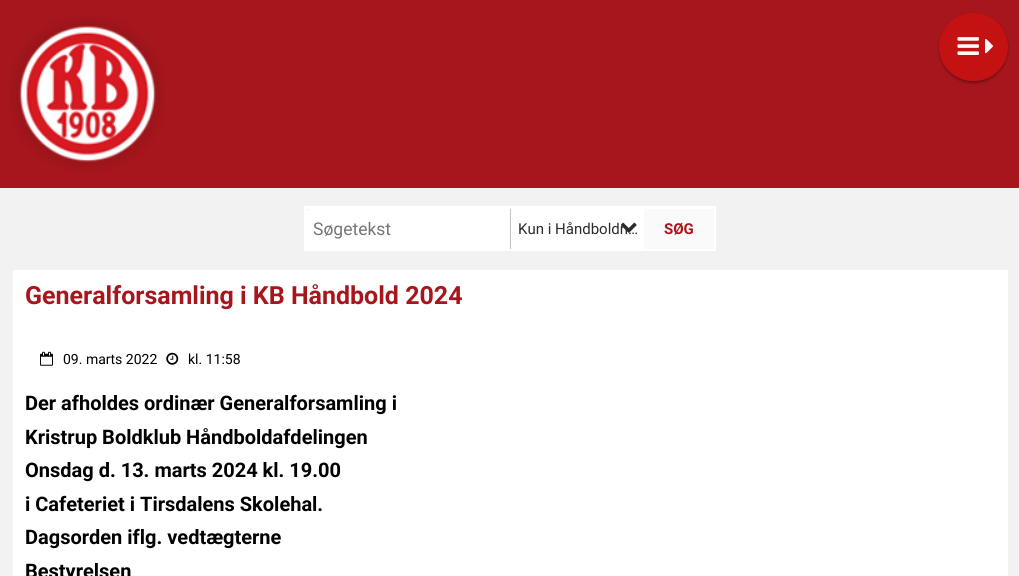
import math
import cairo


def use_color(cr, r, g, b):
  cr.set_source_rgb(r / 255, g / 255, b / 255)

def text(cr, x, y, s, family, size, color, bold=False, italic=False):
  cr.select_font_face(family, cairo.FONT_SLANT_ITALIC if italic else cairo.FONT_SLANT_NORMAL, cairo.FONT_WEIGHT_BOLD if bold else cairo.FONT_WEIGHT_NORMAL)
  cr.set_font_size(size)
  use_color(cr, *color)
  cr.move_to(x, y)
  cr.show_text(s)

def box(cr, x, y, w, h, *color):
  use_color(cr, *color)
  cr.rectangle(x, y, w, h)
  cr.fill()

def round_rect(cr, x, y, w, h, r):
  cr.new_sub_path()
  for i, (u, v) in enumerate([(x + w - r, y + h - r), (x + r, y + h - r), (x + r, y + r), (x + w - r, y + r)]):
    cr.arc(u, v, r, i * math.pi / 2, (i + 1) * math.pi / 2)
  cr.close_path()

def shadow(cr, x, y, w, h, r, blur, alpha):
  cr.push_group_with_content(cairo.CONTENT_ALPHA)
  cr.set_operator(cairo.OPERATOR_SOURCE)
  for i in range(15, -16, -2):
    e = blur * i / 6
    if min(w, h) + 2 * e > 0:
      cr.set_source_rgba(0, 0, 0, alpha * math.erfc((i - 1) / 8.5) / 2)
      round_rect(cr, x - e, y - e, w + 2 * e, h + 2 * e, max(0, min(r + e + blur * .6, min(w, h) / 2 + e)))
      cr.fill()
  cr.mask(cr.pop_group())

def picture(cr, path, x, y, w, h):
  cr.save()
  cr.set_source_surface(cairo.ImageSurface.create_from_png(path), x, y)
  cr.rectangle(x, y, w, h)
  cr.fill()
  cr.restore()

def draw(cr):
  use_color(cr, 242, 242, 242)
  cr.paint()
  box(cr, 0, 0, 1019, 188, 167, 22, 28)
  picture(cr, "img_01.png", 10, 16, 155, 155)
  use_color(cr, 0, 0, 0)
  shadow(cr, 939, 14, 69, 69, 34.5, 1, 0.24)
  shadow(cr, 939, 14, 69, 69, 34.5, 2, 0.12)
  use_color(cr, 196, 18, 18)
  round_rect(cr, 939, 13, 69, 68, 34)
  cr.fill()
  picture(cr, "img_02.png", 957, 37, 22, 18)
  picture(cr, "img_03.png", 985, 39, 8, 15)
  cr.rectangle(305.5, 207.5, 409, 42)
  use_color(cr, 255, 255, 255)
  cr.set_line_width(3)
  cr.stroke()
  cr.new_path()
  cr.move_to(312, 209)
  cr.line_to(515, 209)
  cr.line_to(515, 249)
  cr.line_to(312, 249)
  cr.curve_to(308.5, 249, 306, 246.5, 306, 243)
  cr.line_to(306, 215)
  cr.curve_to(306, 211.5, 308.5, 209, 312, 209)
  cr.close_path()
  cr.fill()
  box(cr, 515, 209, 129, 39, 255, 255, 255)
  box(cr, 510, 209, 1, 40, 194, 194, 194)
  box(cr, 644, 209, 70, 40, 250, 250, 250)
  box(cr, 13, 270, 995, 306, 255, 255, 255)
  picture(cr, "img_05.png", 40, 351, 13, 15)
  picture(cr, "img_06.png", 166, 352, 13, 13)
  text(cr, 313, 235, "Søgetekst", "Roboto", 17.5, (117, 117, 117))
  text(cr, 518, 234, "Kun i Håndboldn…", "Roboto", 15, (44, 44, 44))
  picture(cr, "img_04.png", 620, 222, 17, 11)
  text(cr, 664, 234, "SØG", "Roboto", 15, (167, 22, 28), bold=True)
  text(cr, 25, 304, "Generalforsamling i KB Håndbold 2024", "Roboto", 25, (167, 22, 28), bold=True)
  text(cr, 63, 364, "09. marts 2022", "Roboto", 14, (0, 0, 0))
  text(cr, 188, 364, "kl. 11:58", "Roboto", 14, (0, 0, 0))
  text(cr, 25, 410, "Der afholdes ordinær Generalforsamling i", "Roboto", 20, (0, 0, 0), bold=True)
  text(cr, 25, 444, "Kristrup Boldklub Håndboldafdelingen", "Roboto", 20, (0, 0, 0), bold=True)
  text(cr, 25, 477, "Onsdag d. 13. marts 2024 kl. 19.00", "Roboto", 20, (0, 0, 0), bold=True)
  text(cr, 25, 511, "i Cafeteriet i Tirsdalens Skolehal.", "Roboto", 20, (0, 0, 0), bold=True)
  text(cr, 25, 544, "Dagsorden iflg. vedtægterne", "Roboto", 20, (0, 0, 0), bold=True)
  text(cr, 25, 578, "Bestyrelsen", "Roboto", 20, (0, 0, 0), bold=True)


surface = cairo.ImageSurface(cairo.FORMAT_RGB24, 1019, 576)
cr = cairo.Context(surface)
options = cairo.FontOptions()
options.set_hint_metrics(cairo.HINT_METRICS_OFF)
options.set_hint_style(cairo.HINT_STYLE_NONE)
cr.set_font_options(options)
cr.set_miter_limit(4)
draw(cr)
surface.write_to_png("out.png")
